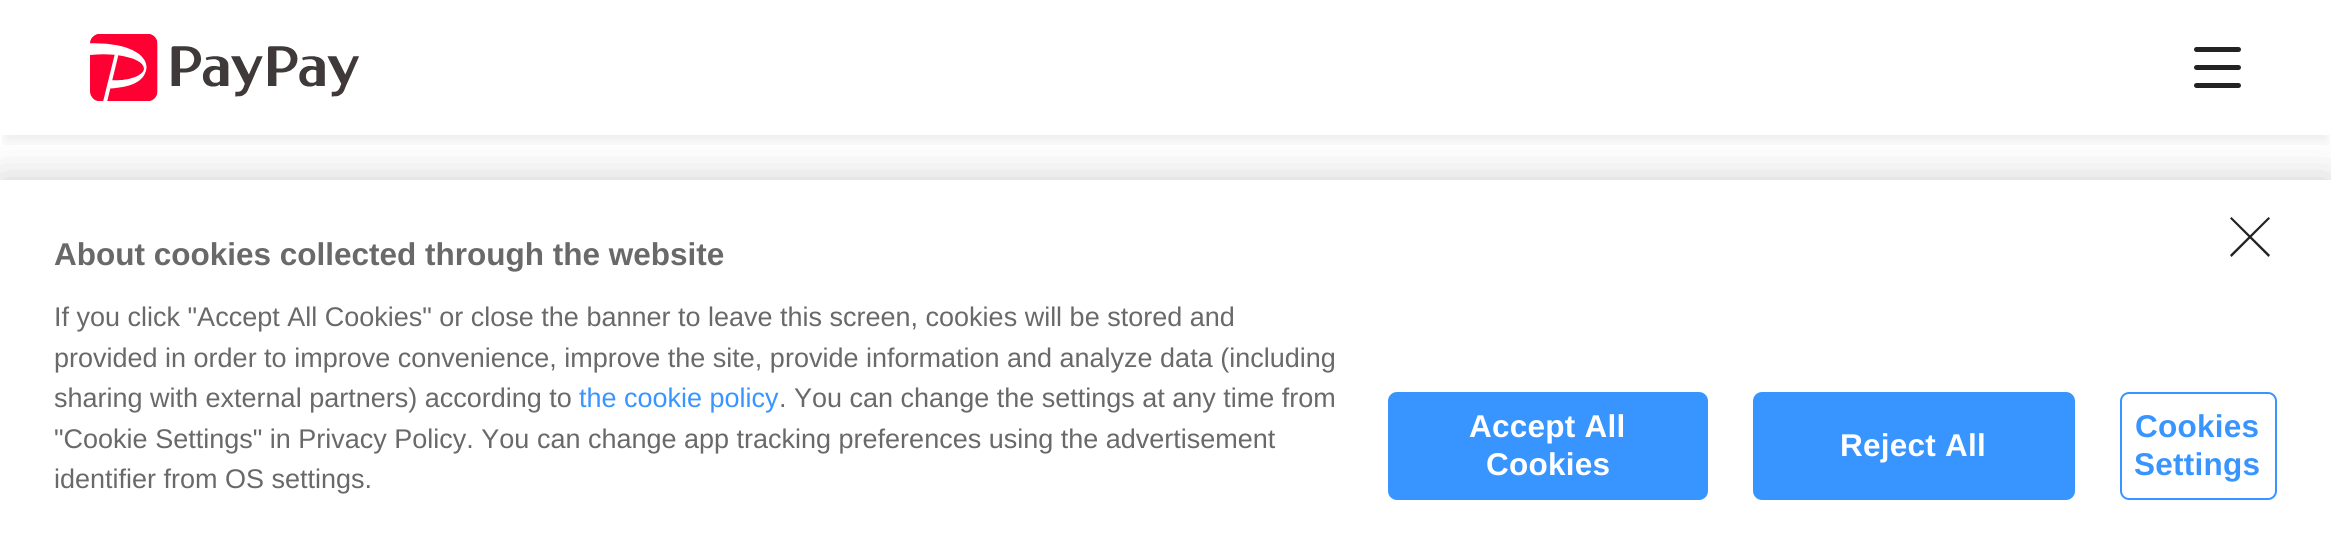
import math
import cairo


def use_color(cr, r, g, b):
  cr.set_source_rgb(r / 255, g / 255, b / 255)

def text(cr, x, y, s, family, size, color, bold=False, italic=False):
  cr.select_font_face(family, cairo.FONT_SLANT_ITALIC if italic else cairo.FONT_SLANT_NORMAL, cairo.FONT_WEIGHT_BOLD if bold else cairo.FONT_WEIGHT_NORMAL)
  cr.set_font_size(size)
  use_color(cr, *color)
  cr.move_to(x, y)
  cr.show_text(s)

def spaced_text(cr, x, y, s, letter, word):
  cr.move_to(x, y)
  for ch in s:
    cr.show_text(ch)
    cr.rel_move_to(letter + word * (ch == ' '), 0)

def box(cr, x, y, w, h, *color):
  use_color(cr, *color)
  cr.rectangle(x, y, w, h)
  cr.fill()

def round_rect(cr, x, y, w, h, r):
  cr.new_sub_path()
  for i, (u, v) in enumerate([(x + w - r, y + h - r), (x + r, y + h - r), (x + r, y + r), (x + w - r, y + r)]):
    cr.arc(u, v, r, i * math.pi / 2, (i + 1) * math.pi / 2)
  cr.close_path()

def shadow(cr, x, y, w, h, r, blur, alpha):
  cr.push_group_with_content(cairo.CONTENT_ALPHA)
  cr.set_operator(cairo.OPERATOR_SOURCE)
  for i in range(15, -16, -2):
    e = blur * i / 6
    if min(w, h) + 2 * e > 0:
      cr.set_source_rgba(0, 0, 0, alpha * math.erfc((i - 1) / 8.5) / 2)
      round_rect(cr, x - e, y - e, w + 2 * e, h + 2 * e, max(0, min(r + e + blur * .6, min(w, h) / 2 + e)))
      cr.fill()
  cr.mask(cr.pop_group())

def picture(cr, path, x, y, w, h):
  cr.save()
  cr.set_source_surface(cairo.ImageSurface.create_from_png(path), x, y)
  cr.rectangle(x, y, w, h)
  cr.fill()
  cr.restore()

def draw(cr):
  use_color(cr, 255, 255, 255)
  cr.paint()
  cr.save()
  cr.rectangle(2, 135, 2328, 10)
  cr.clip()
  use_color(cr, 0, 0, 0)
  shadow(cr, 5, 14, 2322, 126, 0, 7, 0.08)
  cr.restore()
  picture(cr, "img_01.png", 90, 34, 269, 67)
  use_color(cr, 36, 35, 35)
  round_rect(cr, 2194, 47, 47, 5, 2.5)
  cr.fill()
  round_rect(cr, 2194, 65, 47, 5, 2.5)
  cr.fill()
  round_rect(cr, 2194, 83, 47, 5, 2.5)
  cr.fill()
  use_color(cr, 0, 0, 0)
  shadow(cr, 0, 180, 2331, 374, 0, 20, 0.2)
  box(cr, 0, 180, 2331, 372, 255, 255, 255)
  use_color(cr, 36, 35, 35)
  cr.new_path()
  cr.move_to(2230, 255)
  cr.line_to(2268.5, 217)
  cr.line_to(2270, 218.5)
  cr.line_to(2231.5, 257)
  cr.close_path()
  cr.fill()
  cr.new_path()
  cr.move_to(2231.5, 217)
  cr.line_to(2270, 255)
  cr.line_to(2268.5, 257)
  cr.line_to(2230, 218.5)
  cr.close_path()
  cr.fill()
  use_color(cr, 56, 149, 255)
  round_rect(cr, 1389, 393, 318, 106, 8)
  cr.fill_preserve()
  cr.stroke()
  round_rect(cr, 1754, 393, 320, 106, 8)
  cr.fill_preserve()
  cr.stroke()
  round_rect(cr, 2121, 393, 155, 106, 8)
  cr.stroke()
  text(cr, 54, 265, "About cookies collected through the website", "Liberation Sans", 31.5, (105, 105, 105), bold=True)
  text(cr, 54, 326, "If you click \"Accept All Cookies\" or close the banner to leave this screen, cookies will be stored and", "Liberation Sans", 27, (105, 105, 105))
  text(cr, 54, 367, "provided in order to improve convenience, improve the site, provide information and analyze data (including", "Liberation Sans", 27, (105, 105, 105))
  text(cr, 54, 407, "sharing with external partners) according to", "Liberation Sans", 27, (105, 105, 105))
  text(cr, 579, 407, "the cookie policy", "Liberation Sans", 27, (56, 149, 255))
  text(cr, 779, 407, ". You can change the settings at any time from", "Liberation Sans", 27, (105, 105, 105))
  text(cr, 54, 448, "\"Cookie Settings\" in Privacy Policy. You can change app tracking preferences using the advertisement", "Liberation Sans", 27, (105, 105, 105))
  text(cr, 54, 488, "identifier from OS settings.", "Liberation Sans", 27, (105, 105, 105))
  cr.select_font_face("Liberation Sans", cairo.FONT_SLANT_NORMAL, cairo.FONT_WEIGHT_BOLD)
  cr.set_font_size(31.5)
  use_color(cr, 255, 255, 255)
  spaced_text(cr, 1469, 437, "Accept All", 0.25, 0)
  spaced_text(cr, 1486, 475, "Cookies", 0.25, 0)
  spaced_text(cr, 1840, 456, "Reject All", 0.25, 0)
  use_color(cr, 56, 149, 255)
  spaced_text(cr, 2135, 437, "Cookies", 0.25, 0)
  spaced_text(cr, 2134, 475, "Settings", 0.25, 0)


surface = cairo.ImageSurface(cairo.FORMAT_RGB24, 2331, 552)
cr = cairo.Context(surface)
options = cairo.FontOptions()
options.set_hint_metrics(cairo.HINT_METRICS_OFF)
options.set_hint_style(cairo.HINT_STYLE_NONE)
cr.set_font_options(options)
cr.set_miter_limit(4)
draw(cr)
surface.write_to_png("out.png")
